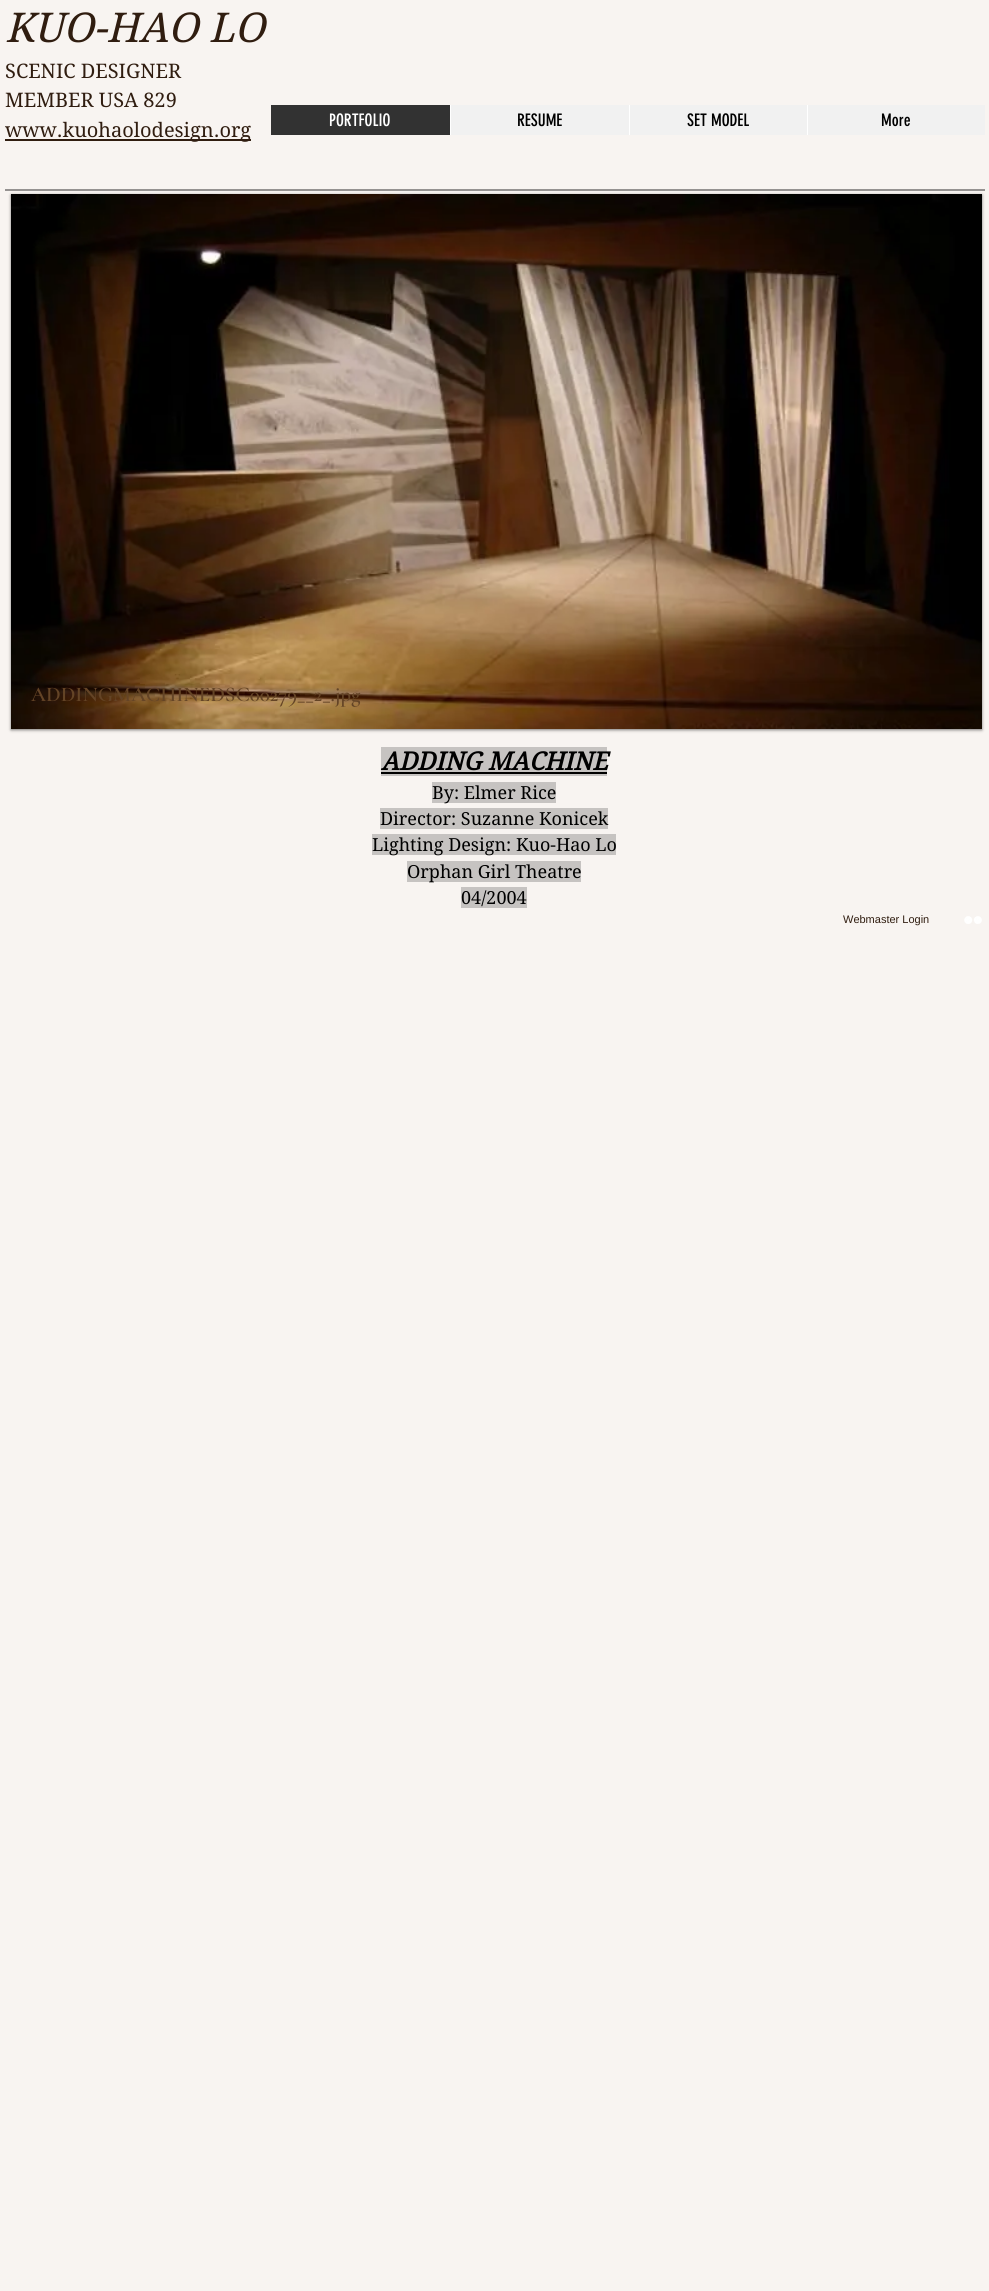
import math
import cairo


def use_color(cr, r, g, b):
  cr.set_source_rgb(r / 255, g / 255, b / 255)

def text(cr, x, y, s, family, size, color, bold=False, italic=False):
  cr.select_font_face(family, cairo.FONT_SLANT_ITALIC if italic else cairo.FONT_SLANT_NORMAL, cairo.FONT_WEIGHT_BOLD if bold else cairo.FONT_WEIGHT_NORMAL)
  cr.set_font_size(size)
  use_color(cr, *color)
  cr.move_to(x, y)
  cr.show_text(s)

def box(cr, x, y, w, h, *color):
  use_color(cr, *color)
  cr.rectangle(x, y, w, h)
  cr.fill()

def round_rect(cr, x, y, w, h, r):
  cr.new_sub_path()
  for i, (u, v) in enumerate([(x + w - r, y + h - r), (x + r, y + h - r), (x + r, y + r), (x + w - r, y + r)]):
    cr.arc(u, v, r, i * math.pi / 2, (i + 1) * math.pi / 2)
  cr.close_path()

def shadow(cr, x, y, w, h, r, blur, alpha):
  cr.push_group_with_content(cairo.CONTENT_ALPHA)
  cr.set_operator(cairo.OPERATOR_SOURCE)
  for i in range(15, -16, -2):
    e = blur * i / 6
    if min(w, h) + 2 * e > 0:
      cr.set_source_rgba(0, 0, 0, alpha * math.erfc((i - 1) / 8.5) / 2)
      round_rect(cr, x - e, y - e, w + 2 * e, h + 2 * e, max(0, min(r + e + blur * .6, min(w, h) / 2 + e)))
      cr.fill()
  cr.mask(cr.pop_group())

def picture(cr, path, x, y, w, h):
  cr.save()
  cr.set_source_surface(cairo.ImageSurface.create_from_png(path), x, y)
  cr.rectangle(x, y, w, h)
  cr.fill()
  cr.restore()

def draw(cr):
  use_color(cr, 248, 244, 241)
  cr.paint()
  box(cr, 5, 139, 246, 2, 48, 29, 16)
  box(cr, 451, 105, 534, 30, 241, 241, 241)
  box(cr, 271, 105, 179, 30, 50, 50, 50)
  box(cr, 450, 105, 1, 30, 255, 255, 255)
  box(cr, 629, 105, 1, 30, 255, 255, 255)
  box(cr, 807, 105, 1, 30, 255, 255, 255)
  box(cr, 5, 189, 980, 2, 149, 146, 145)
  use_color(cr, 0, 0, 0)
  shadow(cr, 11, 195, 971, 535, 0, 1.5, 0.5)
  picture(cr, "img_01.png", 11, 194, 971, 535)
  box(cr, 381, 747, 226, 29, 198, 195, 193)
  box(cr, 381, 772, 226, 2, 0, 0, 0)
  box(cr, 432, 782, 124, 21, 198, 195, 193)
  box(cr, 380, 808, 228, 21, 198, 195, 193)
  box(cr, 372, 834, 244, 21, 198, 195, 193)
  box(cr, 407, 861, 174, 21, 198, 195, 193)
  box(cr, 461, 887, 66, 21, 198, 195, 193)
  picture(cr, "img_02.png", 964, 916, 18, 8)
  text(cr, 5, 42, "KUO-HAO LO", "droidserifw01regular", 41, (48, 29, 16), italic=True)
  text(cr, 5, 78, "SCENIC DESIGNER", "droidserifw01regular", 20, (48, 29, 16))
  text(cr, 5, 107, "MEMBER USA 829", "droidserifw01regular", 20, (48, 29, 16))
  text(cr, 5, 137, "www.kuohaolodesign.org", "droidserifw01regular", 20, (48, 29, 16))
  text(cr, 329, 126, "PORTFOLIO", "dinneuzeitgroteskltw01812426", 17, (255, 255, 255))
  text(cr, 517, 126, "RESUME", "dinneuzeitgroteskltw01812426", 17, (0, 0, 0))
  text(cr, 687, 126, "SET MODEL", "dinneuzeitgroteskltw01812426", 17, (0, 0, 0))
  text(cr, 881, 126, "More", "dinneuzeitgroteskltw01812426", 17, (0, 0, 0))
  text(cr, 31, 701, "ADDINGMACHINEDSC00279__2_.jpg", "Cormorant Garamond SemiBold", 21, (100, 68, 38))
  text(cr, 381, 770, "ADDING MACHINE", "droidserifw01regular", 25, (0, 0, 0), bold=True, italic=True)
  text(cr, 432, 799, "By: Elmer Rice", "droidserifw01regular", 18, (0, 0, 0))
  text(cr, 380, 825, "Director: Suzanne Konicek", "droidserifw01regular", 18, (0, 0, 0))
  text(cr, 372, 851, "Lighting Design: Kuo-Hao Lo", "droidserifw01regular", 18, (0, 0, 0))
  text(cr, 407, 878, "Orphan Girl Theatre", "droidserifw01regular", 18, (0, 0, 0))
  text(cr, 461, 904, "04/2004", "droidserifw01regular", 18, (0, 0, 0))
  text(cr, 843, 923, "Webmaster Login", "Liberation Sans", 11, (48, 29, 16))


surface = cairo.ImageSurface(cairo.FORMAT_RGB24, 989, 2291)
cr = cairo.Context(surface)
options = cairo.FontOptions()
options.set_hint_metrics(cairo.HINT_METRICS_OFF)
options.set_hint_style(cairo.HINT_STYLE_NONE)
cr.set_font_options(options)
cr.set_miter_limit(4)
draw(cr)
surface.write_to_png("out.png")
